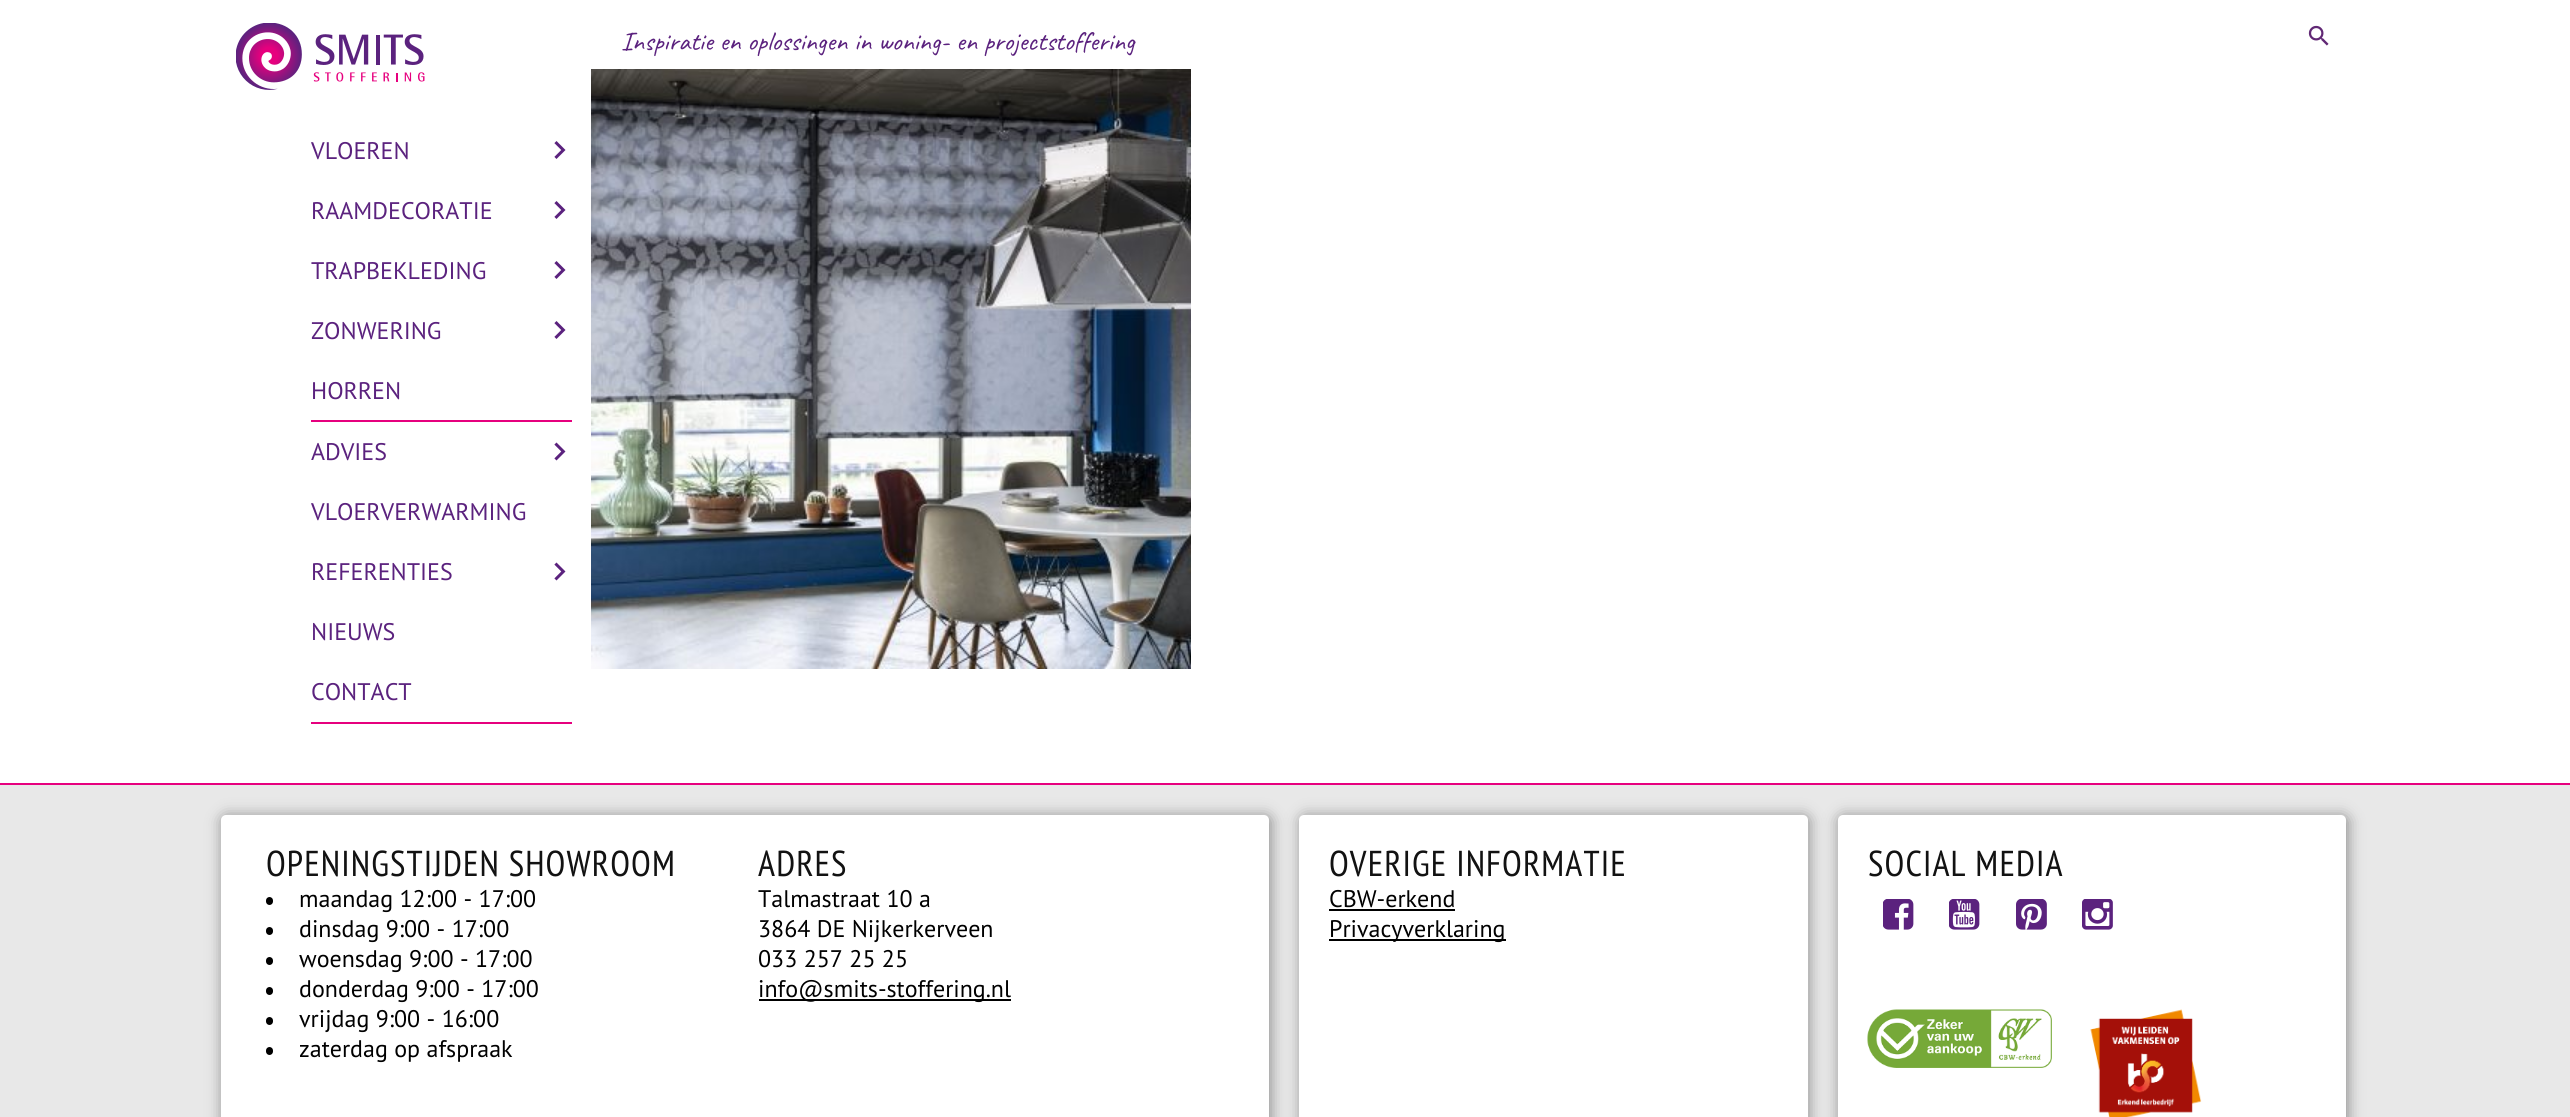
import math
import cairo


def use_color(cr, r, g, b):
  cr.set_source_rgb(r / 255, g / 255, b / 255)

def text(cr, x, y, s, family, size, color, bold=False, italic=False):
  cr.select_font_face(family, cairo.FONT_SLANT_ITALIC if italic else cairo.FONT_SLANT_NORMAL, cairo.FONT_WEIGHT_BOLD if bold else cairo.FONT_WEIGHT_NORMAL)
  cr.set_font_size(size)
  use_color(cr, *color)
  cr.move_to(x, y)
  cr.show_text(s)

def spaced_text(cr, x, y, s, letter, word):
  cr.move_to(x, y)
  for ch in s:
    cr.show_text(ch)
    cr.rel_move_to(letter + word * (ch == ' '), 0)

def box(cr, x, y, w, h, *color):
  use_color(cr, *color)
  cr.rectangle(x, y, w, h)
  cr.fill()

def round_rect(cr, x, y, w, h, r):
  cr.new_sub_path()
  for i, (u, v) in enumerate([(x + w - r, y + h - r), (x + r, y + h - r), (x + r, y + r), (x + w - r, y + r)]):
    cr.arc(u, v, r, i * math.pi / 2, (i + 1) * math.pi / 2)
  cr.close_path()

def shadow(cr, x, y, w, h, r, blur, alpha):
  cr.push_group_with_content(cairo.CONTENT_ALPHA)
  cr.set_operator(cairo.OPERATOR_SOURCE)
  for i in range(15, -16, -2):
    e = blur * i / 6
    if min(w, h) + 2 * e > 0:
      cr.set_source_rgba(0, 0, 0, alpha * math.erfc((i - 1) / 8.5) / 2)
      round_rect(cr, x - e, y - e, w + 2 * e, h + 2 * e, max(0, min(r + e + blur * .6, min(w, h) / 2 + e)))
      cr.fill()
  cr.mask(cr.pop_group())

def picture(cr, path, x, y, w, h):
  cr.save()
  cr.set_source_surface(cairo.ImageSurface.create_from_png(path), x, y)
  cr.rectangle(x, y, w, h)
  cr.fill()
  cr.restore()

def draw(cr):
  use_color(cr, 255, 255, 255)
  cr.paint()
  picture(cr, "img_01.png", 2308, 25, 21, 21)
  picture(cr, "img_02.png", 236, 23, 189, 67)
  box(cr, 311, 420, 261, 2, 230, 0, 126)
  picture(cr, "img_03.png", 554, 141, 12, 18)
  picture(cr, "img_03.png", 554, 201, 12, 18)
  picture(cr, "img_03.png", 554, 261, 12, 18)
  picture(cr, "img_03.png", 554, 321, 12, 18)
  box(cr, 311, 722, 261, 2, 230, 0, 126)
  picture(cr, "img_04.png", 554, 442, 12, 19)
  picture(cr, "img_04.png", 554, 562, 12, 19)
  picture(cr, "img_05.png", 591, 69, 600, 600)
  box(cr, 0, 785, 2570, 332, 232, 232, 232)
  box(cr, 0, 783, 2570, 2, 230, 0, 126)
  use_color(cr, 0, 0, 0)
  shadow(cr, 222, 816, 1049, 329, 5, 7.5, 0.4)
  use_color(cr, 255, 255, 255)
  round_rect(cr, 221, 815, 1048, 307, 5)
  cr.fill()
  use_color(cr, 0, 0, 0)
  round_rect(cr, 266, 897, 7, 8, 3.5)
  cr.fill()
  round_rect(cr, 266, 927, 7, 8, 3.5)
  cr.fill()
  round_rect(cr, 266, 957, 7, 8, 3.5)
  cr.fill()
  round_rect(cr, 266, 987, 7, 8, 3.5)
  cr.fill()
  round_rect(cr, 266, 1017, 7, 8, 3.5)
  cr.fill()
  round_rect(cr, 266, 1047, 7, 8, 3.5)
  cr.fill()
  box(cr, 759, 999, 252, 2, 0, 0, 0)
  use_color(cr, 0, 0, 0)
  shadow(cr, 1301, 816, 508, 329, 5, 7.5, 0.4)
  use_color(cr, 255, 255, 255)
  round_rect(cr, 1299, 815, 509, 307, 5)
  cr.fill()
  box(cr, 1329, 909, 126, 2, 0, 0, 0)
  box(cr, 1329, 939, 177, 2, 0, 0, 0)
  use_color(cr, 0, 0, 0)
  shadow(cr, 1839, 816, 509, 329, 5, 7.5, 0.4)
  use_color(cr, 255, 255, 255)
  round_rect(cr, 1838, 815, 508, 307, 5)
  cr.fill()
  picture(cr, "img_06.png", 1883, 899, 31, 31)
  picture(cr, "img_07.png", 1949, 899, 31, 31)
  picture(cr, "img_08.png", 2016, 899, 31, 31)
  picture(cr, "img_09.png", 2082, 899, 31, 31)
  picture(cr, "img_10.png", 1867, 1009, 185, 59)
  picture(cr, "img_11.png", 2090, 1009, 112, 108)
  cr.select_font_face("Caveat")
  cr.set_font_size(27)
  use_color(cr, 91, 34, 126)
  spaced_text(cr, 621, 50, "Inspiratie en oplossingen in woning- en projectstoffering", 0, 0.25)
  text(cr, 311, 159, "VLOEREN", "PT Sans", 24, (91, 34, 126))
  text(cr, 311, 219, "RAAMDECORATIE", "PT Sans", 24, (91, 34, 126))
  text(cr, 311, 279, "TRAPBEKLEDING", "PT Sans", 24, (91, 34, 126))
  text(cr, 311, 339, "ZONWERING", "PT Sans", 24, (91, 34, 126))
  text(cr, 311, 399, "HORREN", "PT Sans", 24, (91, 34, 126))
  text(cr, 311, 460, "ADVIES", "PT Sans", 24, (91, 34, 126))
  text(cr, 311, 520, "VLOERVERWARMING", "PT Sans", 24, (91, 34, 126))
  text(cr, 311, 580, "REFERENTIES", "PT Sans", 24, (91, 34, 126))
  text(cr, 311, 640, "NIEUWS", "PT Sans", 24, (91, 34, 126))
  text(cr, 311, 700, "CONTACT", "PT Sans", 24, (91, 34, 126))
  cr.select_font_face("PT Sans Narrow")
  cr.set_font_size(36)
  use_color(cr, 18, 18, 18)
  spaced_text(cr, 266, 876, "OPENINGSTIJDEN SHOWROOM", 1.1, 0)
  text(cr, 299, 907, "maandag 12:00 - 17:00", "PT Sans", 24, (0, 0, 0))
  text(cr, 299, 937, "dinsdag 9:00 - 17:00", "PT Sans", 24, (0, 0, 0))
  text(cr, 299, 967, "woensdag 9:00 - 17:00", "PT Sans", 24, (0, 0, 0))
  text(cr, 299, 997, "donderdag 9:00 - 17:00", "PT Sans", 24, (0, 0, 0))
  text(cr, 299, 1027, "vrijdag 9:00 - 16:00", "PT Sans", 24, (0, 0, 0))
  text(cr, 299, 1057, "zaterdag op afspraak", "PT Sans", 24, (0, 0, 0))
  cr.select_font_face("PT Sans Narrow")
  cr.set_font_size(36)
  use_color(cr, 18, 18, 18)
  spaced_text(cr, 758, 876, "ADRES", 1.1, 0)
  text(cr, 758, 907, "Talmastraat 10 a", "PT Sans", 24, (0, 0, 0))
  text(cr, 758, 937, "3864 DE Nijkerkerveen", "PT Sans", 24, (0, 0, 0))
  text(cr, 758, 967, "033 257 25 25", "PT Sans", 24, (0, 0, 0))
  text(cr, 758, 997, "info@smits-stoffering.nl", "PT Sans", 24, (0, 0, 0))
  cr.select_font_face("PT Sans Narrow")
  cr.set_font_size(36)
  use_color(cr, 18, 18, 18)
  spaced_text(cr, 1329, 876, "OVERIGE INFORMATIE", 1.1, 0)
  text(cr, 1329, 907, "CBW-erkend", "PT Sans", 24, (0, 0, 0))
  text(cr, 1329, 937, "Privacyverklaring", "PT Sans", 24, (0, 0, 0))
  cr.select_font_face("PT Sans Narrow")
  cr.set_font_size(36)
  use_color(cr, 18, 18, 18)
  spaced_text(cr, 1868, 876, "SOCIAL MEDIA", 1.1, 0)


surface = cairo.ImageSurface(cairo.FORMAT_RGB24, 2570, 1117)
cr = cairo.Context(surface)
options = cairo.FontOptions()
options.set_hint_metrics(cairo.HINT_METRICS_OFF)
options.set_hint_style(cairo.HINT_STYLE_NONE)
cr.set_font_options(options)
cr.set_miter_limit(4)
draw(cr)
surface.write_to_png("out.png")
